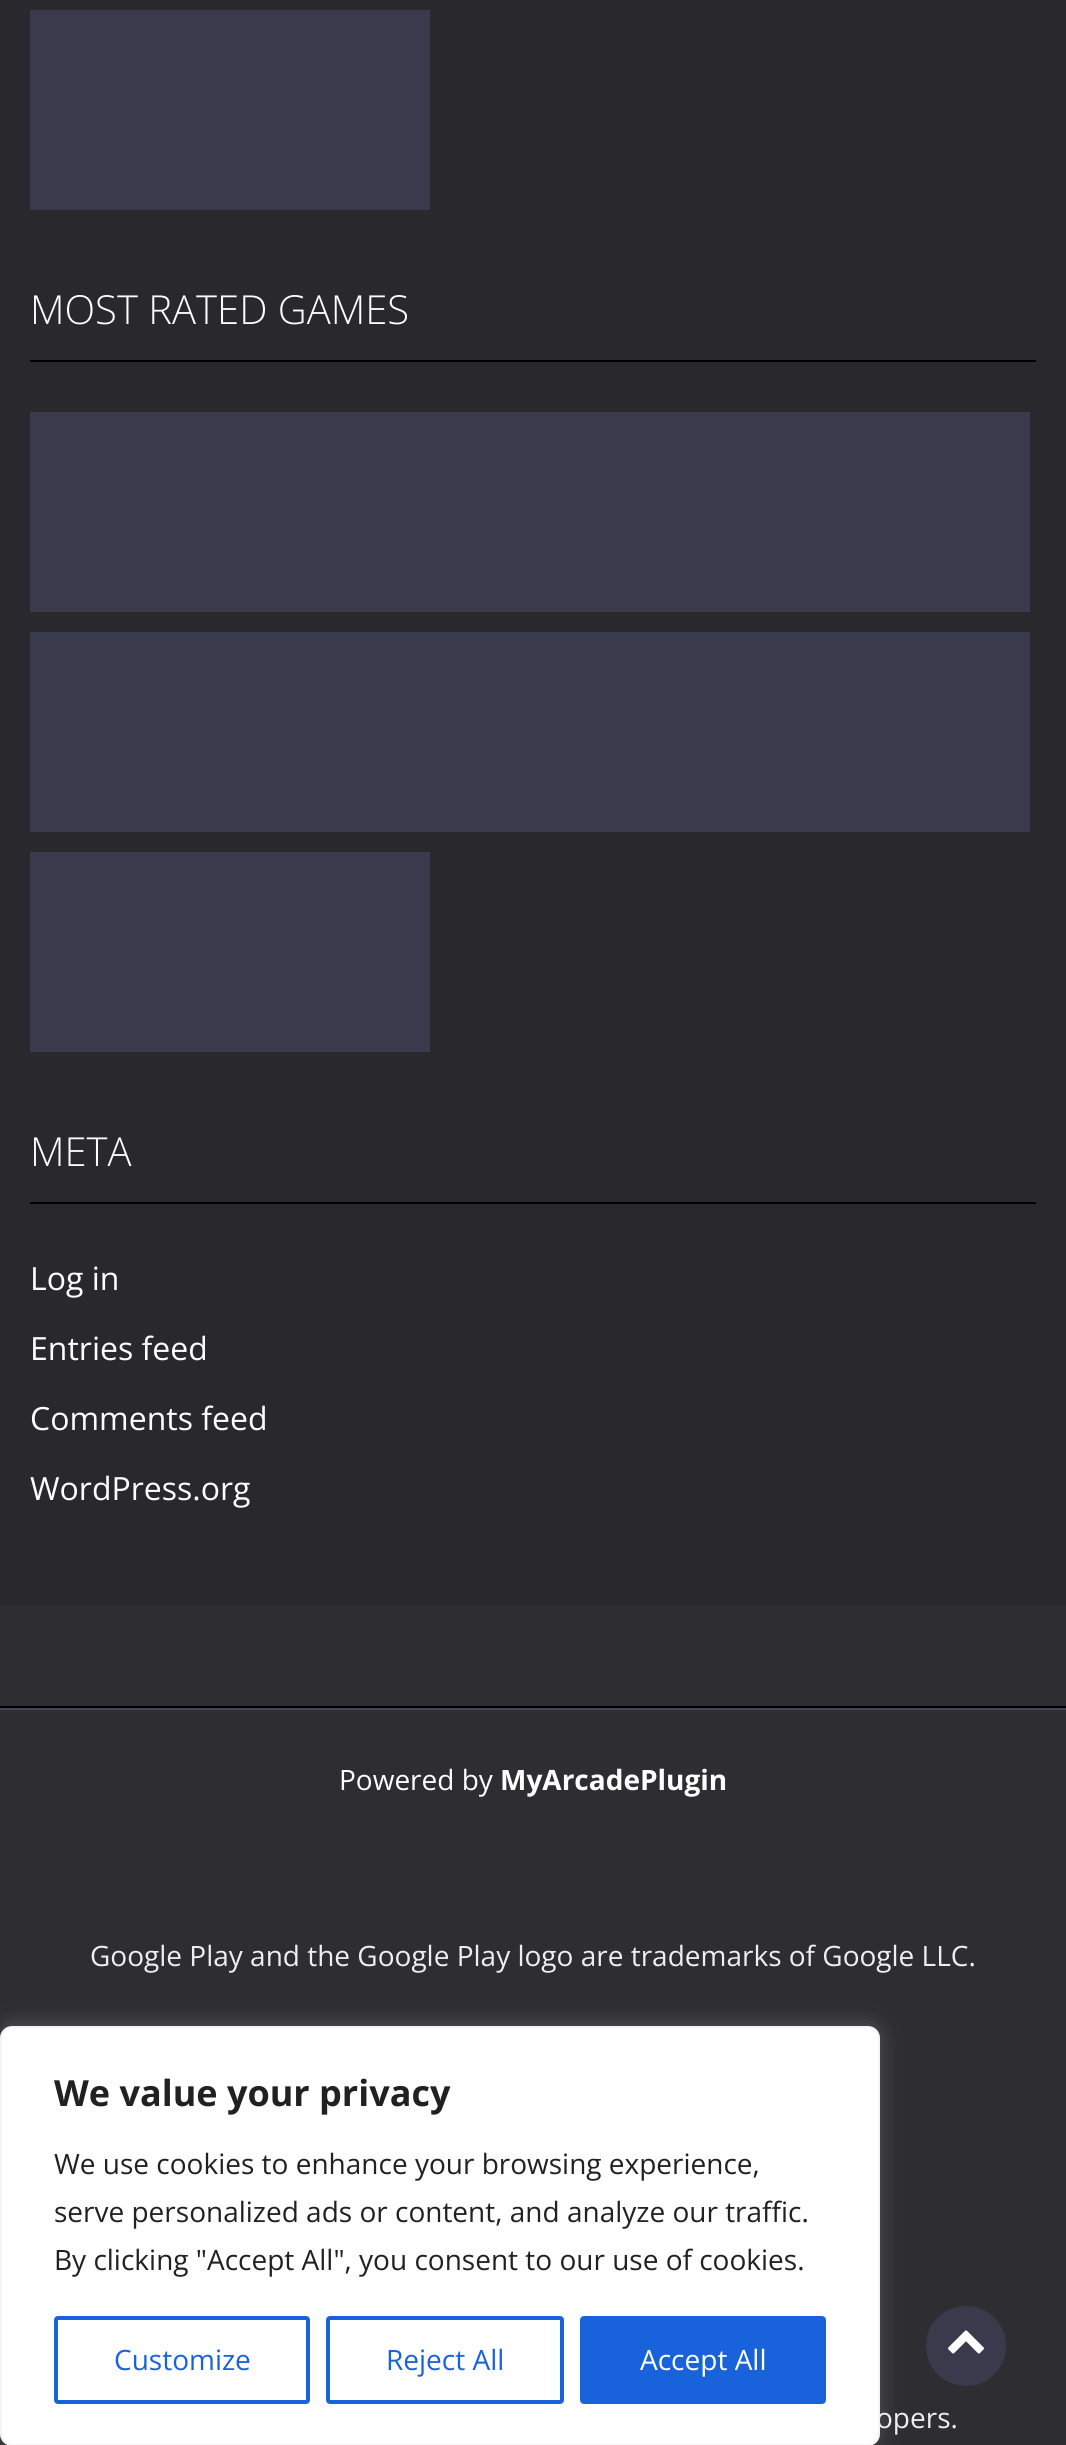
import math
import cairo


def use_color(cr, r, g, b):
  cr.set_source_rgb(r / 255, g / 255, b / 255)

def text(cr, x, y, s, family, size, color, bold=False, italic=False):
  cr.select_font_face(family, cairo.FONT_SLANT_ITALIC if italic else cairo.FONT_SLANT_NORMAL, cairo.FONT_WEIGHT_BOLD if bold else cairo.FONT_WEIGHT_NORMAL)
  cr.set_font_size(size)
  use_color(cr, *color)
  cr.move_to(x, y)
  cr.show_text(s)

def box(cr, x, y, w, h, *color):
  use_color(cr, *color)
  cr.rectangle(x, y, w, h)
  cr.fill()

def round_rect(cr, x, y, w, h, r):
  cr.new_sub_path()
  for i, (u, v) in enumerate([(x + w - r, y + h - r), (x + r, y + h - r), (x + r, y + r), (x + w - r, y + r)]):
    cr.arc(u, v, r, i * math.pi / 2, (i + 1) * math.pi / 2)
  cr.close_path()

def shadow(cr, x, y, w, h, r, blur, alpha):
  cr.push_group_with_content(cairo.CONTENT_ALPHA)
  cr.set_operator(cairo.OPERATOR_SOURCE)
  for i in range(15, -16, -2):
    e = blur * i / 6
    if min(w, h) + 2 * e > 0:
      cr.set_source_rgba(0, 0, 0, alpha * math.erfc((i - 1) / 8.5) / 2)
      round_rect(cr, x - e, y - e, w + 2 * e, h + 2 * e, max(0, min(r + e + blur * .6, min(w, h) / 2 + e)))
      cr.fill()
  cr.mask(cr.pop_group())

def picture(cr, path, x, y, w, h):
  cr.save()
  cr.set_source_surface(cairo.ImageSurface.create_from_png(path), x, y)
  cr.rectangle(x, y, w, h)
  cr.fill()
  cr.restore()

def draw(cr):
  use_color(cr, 46, 46, 50)
  cr.paint()
  box(cr, 0, 0, 1066, 1606, 41, 41, 45)
  box(cr, 30, 10, 400, 200, 57, 58, 76)
  box(cr, 30, 360, 1006, 2, 0, 0, 0)
  box(cr, 30, 412, 1000, 200, 57, 58, 76)
  box(cr, 30, 632, 1000, 200, 57, 58, 76)
  box(cr, 30, 852, 400, 200, 57, 58, 76)
  box(cr, 30, 1202, 1006, 2, 0, 0, 0)
  box(cr, 0, 1706, 1066, 2, 0, 0, 0)
  box(cr, 0, 1708, 1066, 2, 66, 69, 88)
  use_color(cr, 172, 171, 171)
  shadow(cr, 0, 2024, 880, 420, 12, 10, 0.3)
  use_color(cr, 57, 58, 76)
  cr.arc(966, 2346, 40, 0, 2 * math.pi)
  cr.fill()
  picture(cr, "img_01.png", 948, 2330, 36, 24)
  text(cr, 30, 324, "MOST RATED GAMES", "Open Sans Light", 40, (255, 255, 255))
  text(cr, 30, 1166, "META", "Open Sans Light", 40, (255, 255, 255))
  text(cr, 30, 1290, "Log in", "Open Sans", 32, (255, 255, 255))
  text(cr, 30, 1360, "Entries feed", "Open Sans", 32, (255, 255, 255))
  text(cr, 30, 1430, "Comments feed", "Open Sans", 32, (255, 255, 255))
  text(cr, 30, 1500, "WordPress.org", "Open Sans", 32, (255, 255, 255))
  text(cr, 339, 1790, "Powered by", "Open Sans", 28, (255, 255, 255))
  text(cr, 500, 1790, "MyArcadePlugin", "Open Sans", 28, (255, 255, 255), bold=True)
  text(cr, 90, 1966, "Google Play and the Google Play logo are trademarks of Google LLC.", "Open Sans", 28, (238, 238, 238))
  text(cr, 876, 2428, "opers.", "Open Sans", 28, (238, 238, 238))
  use_color(cr, 255, 255, 255)
  round_rect(cr, 1, 2027, 878, 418, 11)
  cr.fill_preserve()
  use_color(cr, 244, 244, 244)
  cr.stroke()
  text(cr, 54, 2106, "We value your privacy", "Open Sans", 36, (33, 33, 33), bold=True)
  text(cr, 54, 2174, "We use cookies to enhance your browsing experience,", "Open Sans", 28, (33, 33, 33))
  text(cr, 54, 2222, "serve personalized ads or content, and analyze our traffic.", "Open Sans", 28, (33, 33, 33))
  text(cr, 54, 2270, "By clicking \"Accept All\", you consent to our use of cookies.", "Open Sans", 28, (33, 33, 33))
  round_rect(cr, 56, 2318, 252, 84, 2)
  use_color(cr, 24, 99, 220)
  cr.set_line_width(4)
  cr.stroke()
  text(cr, 114, 2370, "Customize", "Open Sans", 28, (24, 99, 220))
  round_rect(cr, 328, 2318, 234, 84, 2)
  cr.stroke()
  text(cr, 386, 2370, "Reject All", "Open Sans", 28, (24, 99, 220))
  round_rect(cr, 582, 2318, 242, 84, 2)
  cr.fill_preserve()
  cr.stroke()
  text(cr, 640, 2370, "Accept All", "Open Sans", 28, (255, 255, 255))


surface = cairo.ImageSurface(cairo.FORMAT_RGB24, 1066, 2445)
cr = cairo.Context(surface)
options = cairo.FontOptions()
options.set_hint_metrics(cairo.HINT_METRICS_OFF)
options.set_hint_style(cairo.HINT_STYLE_NONE)
cr.set_font_options(options)
cr.set_miter_limit(4)
draw(cr)
surface.write_to_png("out.png")
